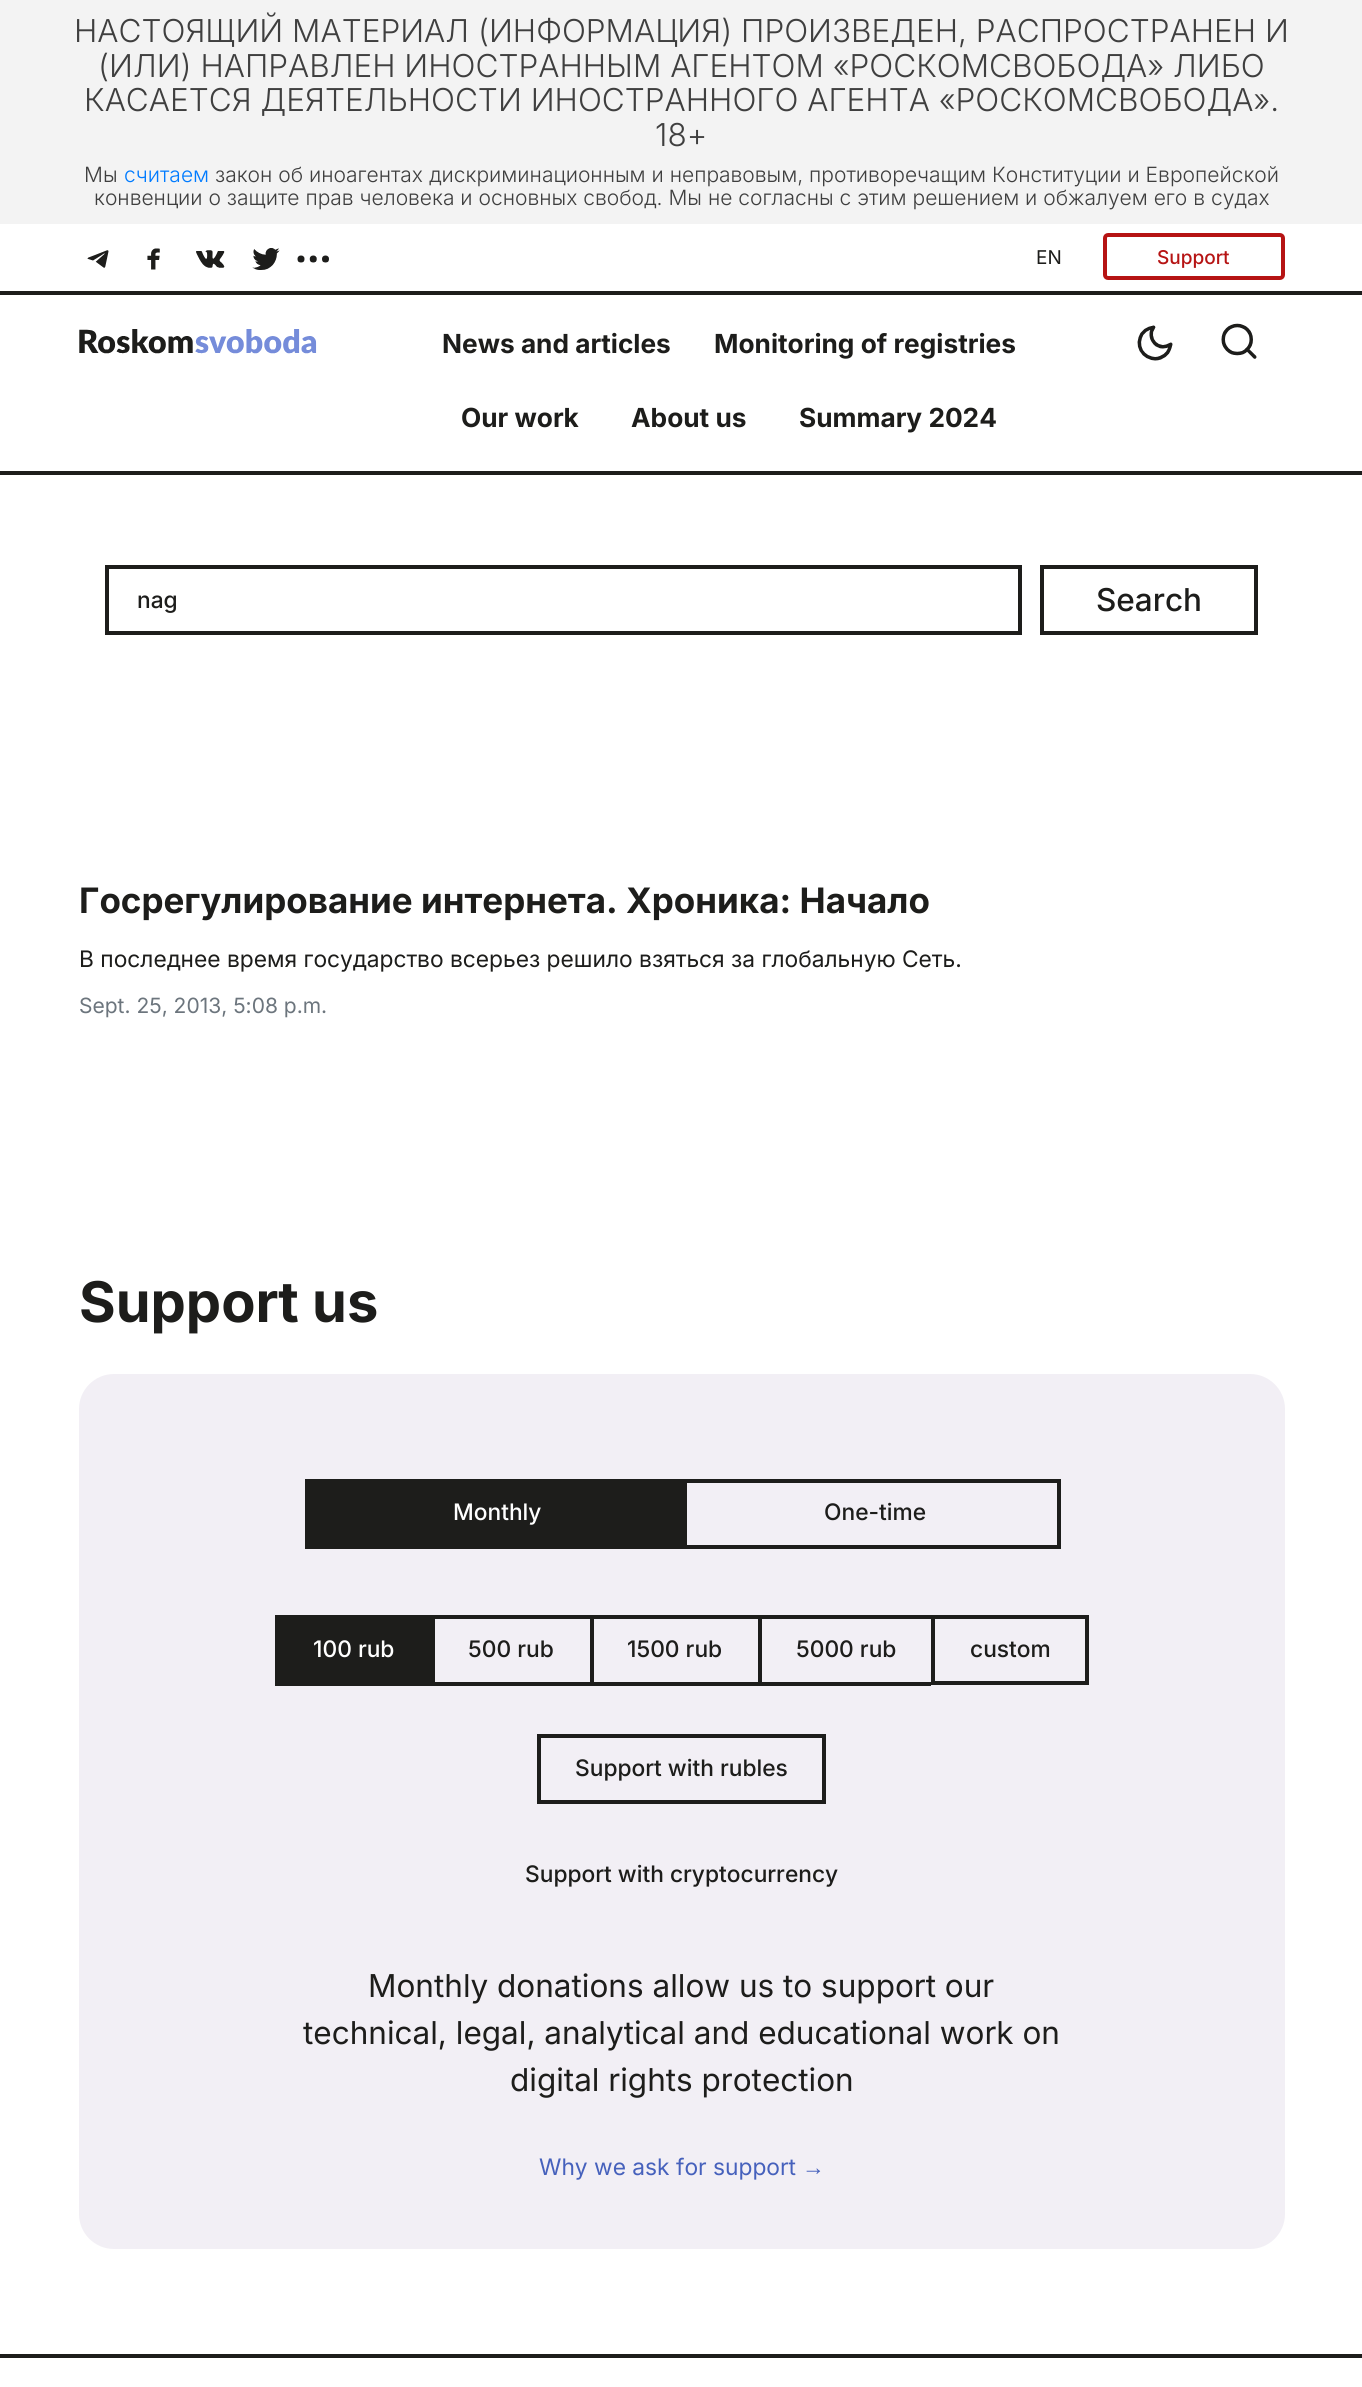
import math
import cairo


def use_color(cr, r, g, b):
  cr.set_source_rgb(r / 255, g / 255, b / 255)

def text(cr, x, y, s, family, size, color, bold=False, italic=False):
  cr.select_font_face(family, cairo.FONT_SLANT_ITALIC if italic else cairo.FONT_SLANT_NORMAL, cairo.FONT_WEIGHT_BOLD if bold else cairo.FONT_WEIGHT_NORMAL)
  cr.set_font_size(size)
  use_color(cr, *color)
  cr.move_to(x, y)
  cr.show_text(s)

def box(cr, x, y, w, h, *color):
  use_color(cr, *color)
  cr.rectangle(x, y, w, h)
  cr.fill()

def round_rect(cr, x, y, w, h, r):
  cr.new_sub_path()
  for i, (u, v) in enumerate([(x + w - r, y + h - r), (x + r, y + h - r), (x + r, y + r), (x + w - r, y + r)]):
    cr.arc(u, v, r, i * math.pi / 2, (i + 1) * math.pi / 2)
  cr.close_path()

def picture(cr, path, x, y, w, h):
  cr.save()
  cr.set_source_surface(cairo.ImageSurface.create_from_png(path), x, y)
  cr.rectangle(x, y, w, h)
  cr.fill()
  cr.restore()

def draw(cr):
  use_color(cr, 255, 255, 255)
  cr.paint()
  box(cr, 0, 0, 1362, 224, 243, 243, 243)
  box(cr, 0, 291, 1362, 4, 29, 29, 27)
  picture(cr, "img_01.png", 87, 250, 22, 18)
  picture(cr, "img_02.png", 147, 248, 13, 22)
  picture(cr, "img_03.png", 196, 250, 29, 18)
  picture(cr, "img_04.png", 252, 248, 28, 22)
  picture(cr, "img_05.png", 297, 255, 32, 8)
  round_rect(cr, 1105, 235, 178, 43, 3)
  use_color(cr, 182, 20, 20)
  cr.set_line_width(4)
  cr.stroke()
  box(cr, 0, 471, 1362, 4, 29, 29, 27)
  picture(cr, "img_06.png", 79, 329, 238, 25)
  picture(cr, "img_07.png", 1137, 325, 36, 36)
  picture(cr, "img_08.png", 1221, 323, 36, 36)
  cr.rectangle(107, 567, 913, 66)
  cr.stroke()
  cr.rectangle(1042, 567, 214, 66)
  cr.stroke()
  box(cr, 0, 2354, 1362, 4, 29, 29, 27)
  use_color(cr, 242, 239, 245)
  round_rect(cr, 79, 1374, 1206, 875, 35)
  cr.fill()
  box(cr, 305, 1479, 378, 70, 29, 29, 27)
  cr.rectangle(685, 1481, 374, 66)
  cr.stroke()
  box(cr, 275, 1615, 156, 71, 29, 29, 27)
  box(cr, 431, 1615, 500, 4, 29, 29, 27)
  box(cr, 431, 1682, 500, 4, 29, 29, 27)
  box(cr, 431, 1615, 4, 70, 29, 29, 27)
  box(cr, 590, 1615, 4, 70, 29, 29, 27)
  box(cr, 758, 1615, 4, 70, 29, 29, 27)
  cr.rectangle(933, 1617, 154, 66)
  cr.stroke()
  cr.rectangle(539, 1736, 285, 66)
  cr.stroke()
  text(cr, 74, 42, "НАСТОЯЩИЙ МАТЕРИАЛ (ИНФОРМАЦИЯ) ПРОИЗВЕДЕН, РАСПРОСТРАНЕН И", "Inter Light", 31.5, (63, 63, 63))
  text(cr, 98, 77, "(ИЛИ) НАПРАВЛЕН ИНОСТРАННЫМ АГЕНТОМ «РОСКОМСВОБОДА» ЛИБО", "Inter Light", 31.5, (63, 63, 63))
  text(cr, 84, 111, "КАСАЕТСЯ ДЕЯТЕЛЬНОСТИ ИНОСТРАННОГО АГЕНТА «РОСКОМСВОБОДА».", "Inter Light", 31.5, (63, 63, 63))
  text(cr, 655, 146, "18+", "Inter Light", 31.5, (63, 63, 63))
  text(cr, 84, 182, "Мы", "Inter Light", 21, (63, 63, 63))
  text(cr, 124, 182, "считаем", "Inter Light", 21, (0, 123, 255))
  text(cr, 215, 182, "закон об иноагентах дискриминационным и неправовым, противоречащим Конституции и Европейской", "Inter Light", 21, (63, 63, 63))
  text(cr, 94, 205, "конвенции о защите прав человека и основных свобод. Мы не согласны с этим решением и обжалуем его в судах", "Inter Light", 21, (63, 63, 63))
  text(cr, 1036, 264, "EN", "Inter", 19, (29, 29, 27))
  text(cr, 1157, 264, "Support", "Inter Medium", 19, (182, 20, 20))
  text(cr, 442, 353, "News and articles", "Inter", 26.25, (29, 29, 27), bold=True)
  text(cr, 714, 353, "Monitoring of registries", "Inter", 26.25, (29, 29, 27), bold=True)
  text(cr, 461, 427, "Our work", "Inter", 26.25, (29, 29, 27), bold=True)
  text(cr, 631, 427, "About us", "Inter", 26.25, (29, 29, 27), bold=True)
  text(cr, 799, 427, "Summary 2024", "Inter", 26.25, (29, 29, 27), bold=True)
  text(cr, 137, 608, "nag", "Inter Medium", 22.75, (29, 29, 27))
  text(cr, 1096, 611, "Search", "Inter Medium", 31.5, (29, 29, 27))
  text(cr, 79, 913, "Госрегулирование интернета. Хроника: Начало", "Inter", 35, (29, 29, 27), bold=True)
  text(cr, 79, 967, "В последнее время государство всерьез решило взяться за глобальную Сеть.", "Inter", 22.75, (29, 29, 27))
  text(cr, 79, 1013, "Sept. 25, 2013, 5:08 p.m.", "Inter", 21, (108, 117, 125))
  text(cr, 79, 1322, "Support us", "Inter", 56, (29, 29, 27), bold=True)
  text(cr, 453, 1520, "Monthly", "Inter Medium", 22.75, (255, 255, 255))
  text(cr, 824, 1520, "One-time", "Inter Medium", 22.75, (29, 29, 27))
  text(cr, 313, 1657, "100 rub", "Inter Medium", 22.75, (255, 255, 255))
  text(cr, 468, 1657, "500 rub", "Inter Medium", 22.75, (29, 29, 27))
  text(cr, 627, 1657, "1500 rub", "Inter Medium", 22.75, (29, 29, 27))
  text(cr, 796, 1657, "5000 rub", "Inter Medium", 22.75, (29, 29, 27))
  text(cr, 970, 1657, "custom", "Inter Medium", 22.75, (29, 29, 27))
  text(cr, 575, 1776, "Support with rubles", "Inter Medium", 22.75, (29, 29, 27))
  text(cr, 525, 1882, "Support with cryptocurrency", "Inter Medium", 22.75, (29, 29, 27))
  text(cr, 368, 1997, "Monthly donations allow us to support our", "Inter", 31.5, (29, 29, 27))
  text(cr, 303, 2044, "technical, legal, analytical and educational work on", "Inter", 31.5, (29, 29, 27))
  text(cr, 510, 2091, "digital rights protection", "Inter", 31.5, (29, 29, 27))
  text(cr, 539, 2175, "Why we ask for support", "Inter", 22.75, (70, 97, 188))
  text(cr, 802, 2175, "→", "Liberation Sans", 22.75, (70, 97, 188))


surface = cairo.ImageSurface(cairo.FORMAT_RGB24, 1362, 2387)
cr = cairo.Context(surface)
options = cairo.FontOptions()
options.set_hint_metrics(cairo.HINT_METRICS_OFF)
options.set_hint_style(cairo.HINT_STYLE_NONE)
cr.set_font_options(options)
cr.set_miter_limit(4)
draw(cr)
surface.write_to_png("out.png")
